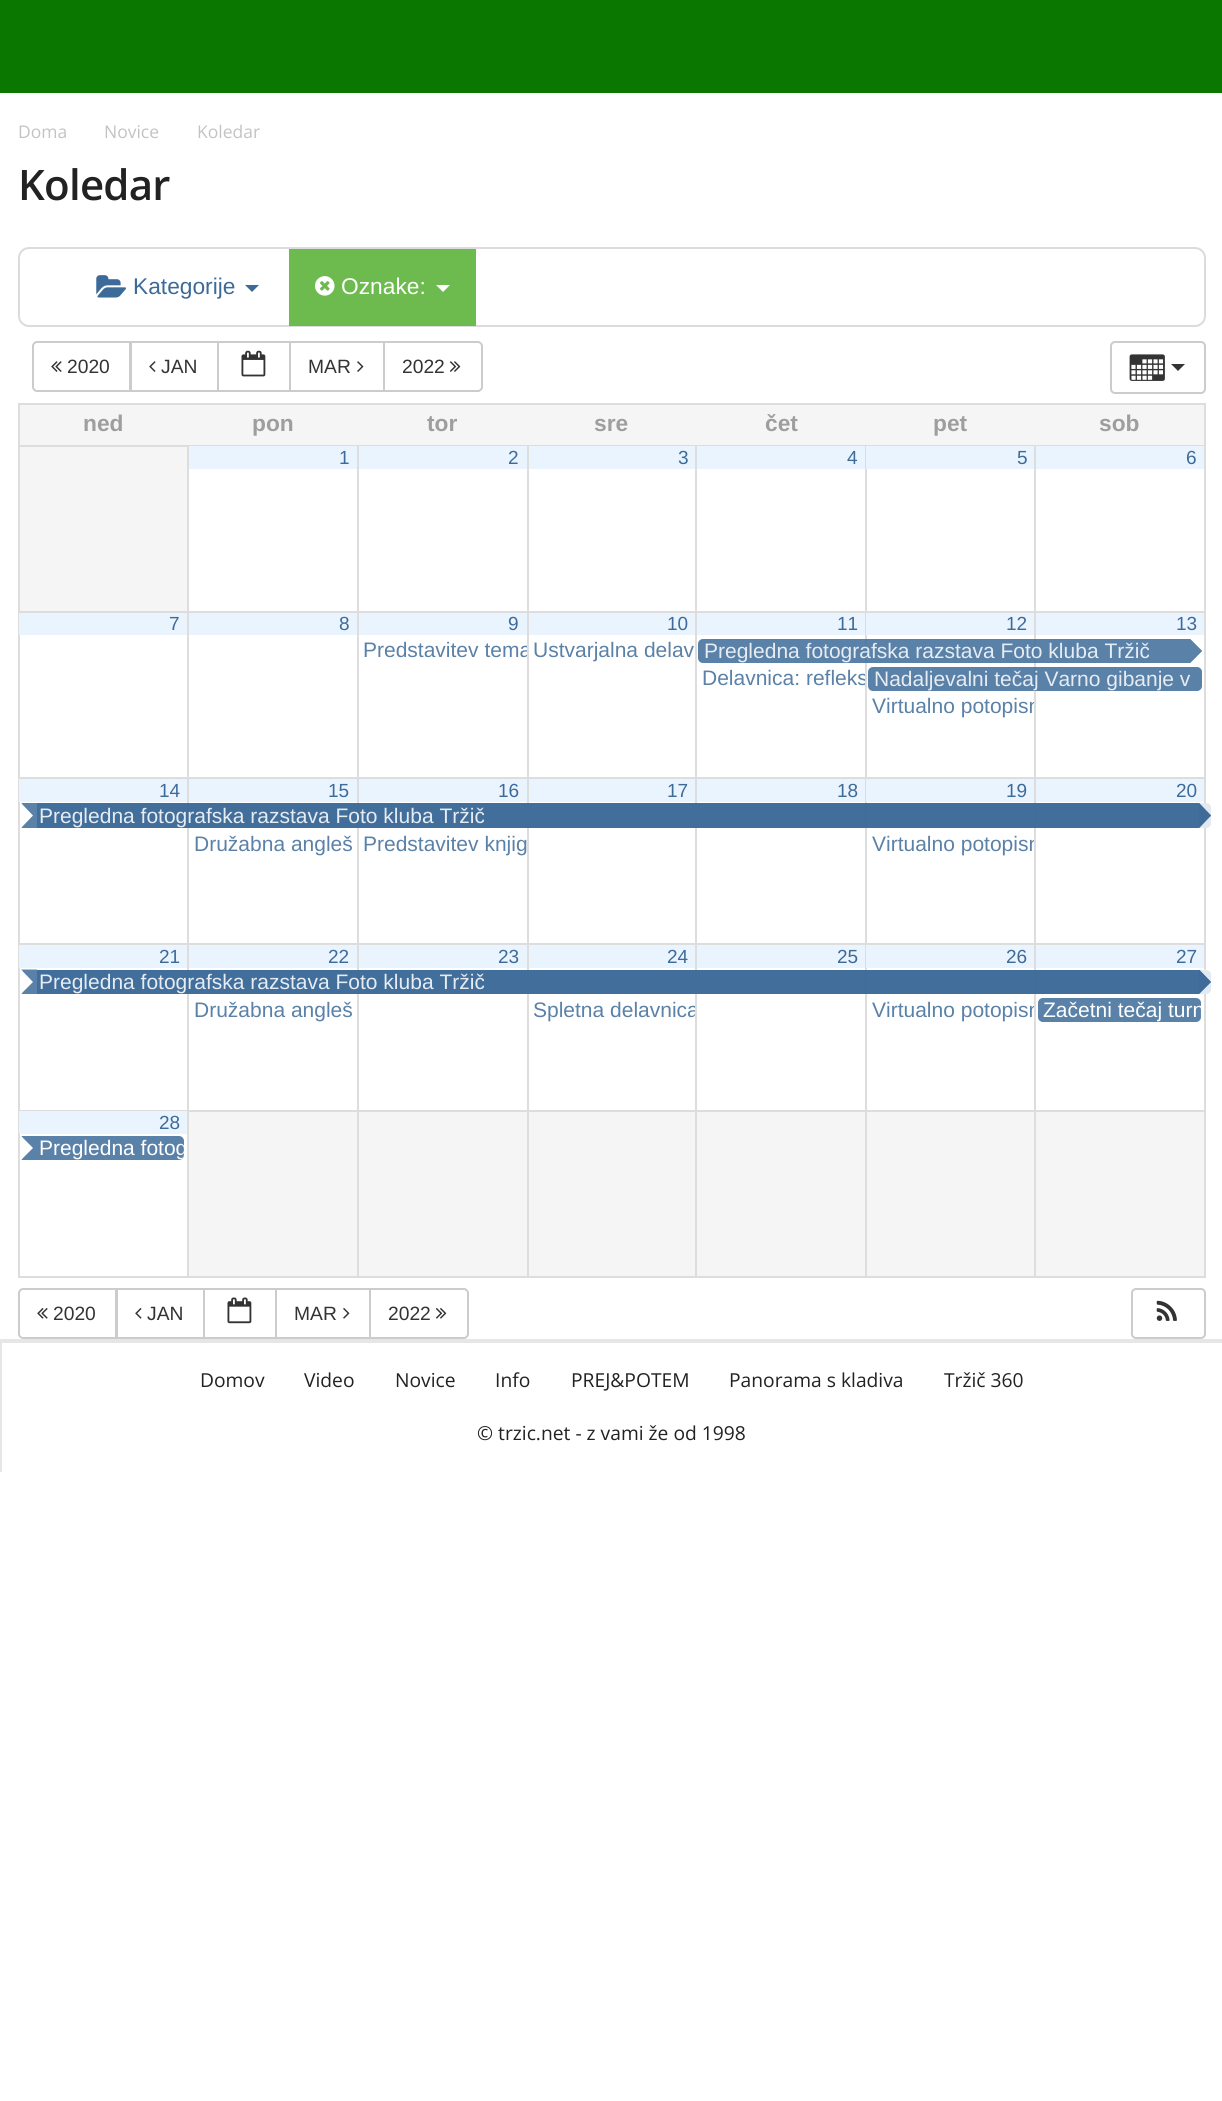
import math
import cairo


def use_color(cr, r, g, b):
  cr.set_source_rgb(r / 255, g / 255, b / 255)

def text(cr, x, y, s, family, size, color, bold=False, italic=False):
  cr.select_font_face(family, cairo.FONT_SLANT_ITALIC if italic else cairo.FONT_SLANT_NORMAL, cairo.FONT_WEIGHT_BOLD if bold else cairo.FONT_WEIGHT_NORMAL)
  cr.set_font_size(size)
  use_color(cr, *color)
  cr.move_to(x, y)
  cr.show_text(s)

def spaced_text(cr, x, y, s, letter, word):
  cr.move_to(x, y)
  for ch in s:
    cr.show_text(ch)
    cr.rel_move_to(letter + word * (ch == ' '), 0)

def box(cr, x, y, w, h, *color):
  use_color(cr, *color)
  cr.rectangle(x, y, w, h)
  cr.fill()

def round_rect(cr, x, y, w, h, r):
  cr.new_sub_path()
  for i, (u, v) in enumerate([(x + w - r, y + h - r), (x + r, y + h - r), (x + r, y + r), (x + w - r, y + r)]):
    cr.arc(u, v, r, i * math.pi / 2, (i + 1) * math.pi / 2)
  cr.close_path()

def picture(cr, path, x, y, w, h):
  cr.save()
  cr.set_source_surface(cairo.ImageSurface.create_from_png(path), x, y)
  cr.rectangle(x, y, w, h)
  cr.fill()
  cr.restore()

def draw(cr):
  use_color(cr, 255, 255, 255)
  cr.paint()
  box(cr, 0, 0, 1222, 93, 9, 119, 0)
  round_rect(cr, 19, 248, 1186, 78, 10)
  use_color(cr, 219, 219, 219)
  cr.stroke()
  picture(cr, "img_01.png", 96, 275, 30, 23)
  use_color(cr, 61, 107, 153)
  cr.new_path()
  cr.move_to(245, 285)
  cr.line_to(259, 285)
  cr.line_to(252, 292)
  cr.close_path()
  cr.fill()
  box(cr, 289, 249, 187, 77, 109, 187, 79)
  picture(cr, "img_02.png", 315, 276, 20, 20)
  use_color(cr, 255, 255, 255)
  cr.new_path()
  cr.move_to(436, 285)
  cr.line_to(450, 285)
  cr.line_to(443, 292)
  cr.close_path()
  cr.fill()
  cr.new_path()
  cr.move_to(37, 342)
  cr.line_to(130, 342)
  cr.line_to(130, 391)
  cr.line_to(37, 391)
  cr.curve_to(35, 391, 33, 389, 33, 387)
  cr.line_to(33, 346)
  cr.curve_to(33, 344, 35, 342, 37, 342)
  cr.close_path()
  use_color(cr, 204, 204, 204)
  cr.stroke()
  picture(cr, "img_03.png", 51, 361, 11, 11)
  cr.rectangle(131, 342, 87, 49)
  cr.stroke()
  picture(cr, "img_04.png", 149, 361, 7, 11)
  cr.rectangle(218, 342, 72, 49)
  cr.stroke()
  picture(cr, "img_05.png", 241, 350, 25, 27)
  cr.rectangle(290, 342, 94, 49)
  cr.stroke()
  picture(cr, "img_06.png", 357, 361, 7, 11)
  use_color(cr, 255, 255, 255)
  cr.new_path()
  cr.move_to(384, 342)
  cr.line_to(478, 342)
  cr.curve_to(480, 342, 482, 344, 482, 346)
  cr.line_to(482, 387)
  cr.curve_to(482, 389, 480, 391, 478, 391)
  cr.line_to(384, 391)
  cr.close_path()
  cr.fill_preserve()
  use_color(cr, 204, 204, 204)
  cr.stroke()
  picture(cr, "img_07.png", 449, 361, 12, 11)
  round_rect(cr, 1111, 342, 94, 51, 4)
  cr.stroke()
  picture(cr, "img_08.png", 1129, 354, 36, 27)
  use_color(cr, 51, 51, 51)
  cr.new_path()
  cr.move_to(1171, 364)
  cr.line_to(1185, 364)
  cr.line_to(1178, 371)
  cr.close_path()
  cr.fill()
  box(cr, 18, 403, 1188, 2, 221, 221, 221)
  box(cr, 1204, 403, 2, 875, 221, 221, 221)
  box(cr, 18, 1276, 1188, 2, 221, 221, 221)
  box(cr, 18, 403, 2, 875, 221, 221, 221)
  box(cr, 20, 405, 1184, 40, 245, 245, 245)
  box(cr, 20, 447, 167, 164, 245, 245, 245)
  box(cr, 1034, 445, 172, 2, 221, 221, 221)
  box(cr, 1034, 611, 172, 2, 221, 221, 221)
  box(cr, 1034, 777, 172, 2, 221, 221, 221)
  box(cr, 1034, 943, 172, 2, 221, 221, 221)
  box(cr, 1034, 1110, 172, 2, 221, 221, 221)
  box(cr, 1034, 1110, 2, 168, 221, 221, 221)
  box(cr, 865, 1110, 171, 2, 221, 221, 221)
  box(cr, 1034, 943, 2, 168, 221, 221, 221)
  box(cr, 865, 943, 171, 2, 221, 221, 221)
  box(cr, 1034, 777, 2, 168, 221, 221, 221)
  box(cr, 865, 777, 171, 2, 221, 221, 221)
  box(cr, 1034, 611, 2, 168, 221, 221, 221)
  box(cr, 865, 611, 171, 2, 221, 221, 221)
  box(cr, 1034, 445, 2, 168, 221, 221, 221)
  box(cr, 865, 445, 171, 2, 221, 221, 221)
  box(cr, 865, 1110, 2, 168, 221, 221, 221)
  box(cr, 695, 1110, 171, 2, 221, 221, 221)
  box(cr, 865, 943, 2, 168, 221, 221, 221)
  box(cr, 695, 943, 171, 2, 221, 221, 221)
  box(cr, 865, 777, 2, 168, 221, 221, 221)
  box(cr, 695, 777, 171, 2, 221, 221, 221)
  box(cr, 865, 611, 2, 168, 221, 221, 221)
  box(cr, 695, 611, 171, 2, 221, 221, 221)
  box(cr, 865, 445, 2, 168, 221, 221, 221)
  box(cr, 695, 445, 171, 2, 221, 221, 221)
  box(cr, 695, 1110, 2, 168, 221, 221, 221)
  box(cr, 527, 1110, 170, 2, 221, 221, 221)
  box(cr, 695, 943, 2, 168, 221, 221, 221)
  box(cr, 527, 943, 170, 2, 221, 221, 221)
  box(cr, 695, 777, 2, 168, 221, 221, 221)
  box(cr, 527, 777, 170, 2, 221, 221, 221)
  box(cr, 695, 611, 2, 168, 221, 221, 221)
  box(cr, 527, 611, 170, 2, 221, 221, 221)
  box(cr, 695, 445, 2, 168, 221, 221, 221)
  box(cr, 527, 445, 170, 2, 221, 221, 221)
  box(cr, 527, 1110, 2, 168, 221, 221, 221)
  box(cr, 357, 1110, 172, 2, 221, 221, 221)
  box(cr, 527, 943, 2, 168, 221, 221, 221)
  box(cr, 357, 943, 172, 2, 221, 221, 221)
  box(cr, 527, 777, 2, 168, 221, 221, 221)
  box(cr, 357, 777, 172, 2, 221, 221, 221)
  box(cr, 527, 611, 2, 168, 221, 221, 221)
  box(cr, 357, 611, 172, 2, 221, 221, 221)
  box(cr, 527, 445, 2, 168, 221, 221, 221)
  box(cr, 357, 445, 172, 2, 221, 221, 221)
  box(cr, 357, 1110, 2, 168, 221, 221, 221)
  box(cr, 187, 1110, 172, 2, 221, 221, 221)
  box(cr, 357, 943, 2, 168, 221, 221, 221)
  box(cr, 187, 943, 172, 2, 221, 221, 221)
  box(cr, 357, 777, 2, 168, 221, 221, 221)
  box(cr, 187, 777, 172, 2, 221, 221, 221)
  box(cr, 357, 611, 2, 168, 221, 221, 221)
  box(cr, 187, 611, 172, 2, 221, 221, 221)
  box(cr, 357, 445, 2, 168, 221, 221, 221)
  box(cr, 187, 445, 172, 2, 221, 221, 221)
  box(cr, 187, 1110, 2, 168, 221, 221, 221)
  box(cr, 18, 1110, 171, 2, 221, 221, 221)
  box(cr, 187, 943, 2, 168, 221, 221, 221)
  box(cr, 18, 943, 171, 2, 221, 221, 221)
  box(cr, 187, 777, 2, 168, 221, 221, 221)
  box(cr, 18, 777, 171, 2, 221, 221, 221)
  box(cr, 187, 611, 2, 168, 221, 221, 221)
  box(cr, 18, 611, 171, 2, 221, 221, 221)
  box(cr, 187, 445, 2, 168, 221, 221, 221)
  box(cr, 18, 445, 171, 2, 221, 221, 221)
  box(cr, 189, 446, 168, 23, 234, 244, 255)
  box(cr, 359, 446, 168, 23, 234, 244, 255)
  box(cr, 529, 446, 166, 23, 234, 244, 255)
  box(cr, 697, 446, 168, 23, 234, 244, 255)
  box(cr, 866, 446, 168, 23, 234, 244, 255)
  box(cr, 1036, 446, 168, 23, 234, 244, 255)
  box(cr, 19, 613, 168, 22, 234, 244, 255)
  box(cr, 189, 613, 168, 22, 234, 244, 255)
  box(cr, 359, 613, 168, 22, 234, 244, 255)
  box(cr, 529, 613, 166, 22, 234, 244, 255)
  box(cr, 697, 613, 168, 22, 234, 244, 255)
  cr.set_source_rgba(0.239, 0.42, 0.6, 0.85)
  round_rect(cr, 698, 639, 504, 24, 5)
  cr.fill()
  use_color(cr, 255, 255, 255)
  cr.new_path()
  cr.move_to(1190, 639)
  cr.line_to(1202, 639)
  cr.line_to(1202, 651)
  cr.close_path()
  cr.move_to(1202, 663)
  cr.line_to(1190, 663)
  cr.line_to(1202, 651)
  cr.close_path()
  cr.fill()
  use_color(cr, 90, 129, 168)
  cr.new_path()
  cr.move_to(1190, 663)
  cr.line_to(1190, 639)
  cr.line_to(1202, 651)
  cr.close_path()
  cr.fill()
  box(cr, 1036, 613, 168, 22, 234, 244, 255)
  box(cr, 866, 613, 168, 22, 234, 244, 255)
  cr.set_source_rgba(0.239, 0.42, 0.6, 0.85)
  round_rect(cr, 868, 667, 334, 24, 5)
  cr.fill()
  box(cr, 359, 779, 168, 23, 234, 244, 255)
  box(cr, 866, 779, 168, 23, 234, 244, 255)
  box(cr, 1036, 779, 168, 23, 234, 244, 255)
  box(cr, 19, 779, 168, 23, 234, 244, 255)
  cr.set_source_rgba(0.239, 0.42, 0.6, 0.85)
  round_rect(cr, 21, 803, 1190, 25, 5)
  cr.fill()
  round_rect(cr, 21, 803, 1190, 25, 5)
  cr.fill()
  use_color(cr, 90, 129, 168)
  cr.new_path()
  cr.move_to(21, 803)
  cr.line_to(37, 803)
  cr.line_to(33, 815.5)
  cr.close_path()
  cr.fill()
  box(cr, 33, 803, 4, 25, 90, 129, 168)
  cr.new_path()
  cr.move_to(37, 828)
  cr.line_to(21, 828)
  cr.line_to(33, 815.5)
  cr.close_path()
  cr.fill()
  use_color(cr, 255, 255, 255)
  cr.new_path()
  cr.move_to(21, 828)
  cr.line_to(21, 803)
  cr.line_to(33, 815.5)
  cr.close_path()
  cr.fill()
  cr.set_source_rgba(1, 1, 1, 0.85)
  cr.new_path()
  cr.move_to(1199, 803)
  cr.line_to(1211, 803)
  cr.line_to(1211, 815.5)
  cr.close_path()
  cr.fill()
  cr.new_path()
  cr.move_to(1211, 828)
  cr.line_to(1199, 828)
  cr.line_to(1211, 815.5)
  cr.close_path()
  cr.fill()
  cr.set_source_rgba(0.239, 0.42, 0.6, 0.85)
  cr.new_path()
  cr.move_to(1199, 828)
  cr.line_to(1199, 803)
  cr.line_to(1211, 815.5)
  cr.close_path()
  cr.fill()
  box(cr, 189, 779, 168, 23, 234, 244, 255)
  box(cr, 529, 779, 166, 23, 234, 244, 255)
  box(cr, 697, 779, 168, 23, 234, 244, 255)
  box(cr, 19, 945, 168, 23, 234, 244, 255)
  cr.set_source_rgba(0.239, 0.42, 0.6, 0.85)
  round_rect(cr, 21, 970, 1190, 24, 5)
  cr.fill()
  round_rect(cr, 21, 970, 1190, 24, 5)
  cr.fill()
  use_color(cr, 90, 129, 168)
  cr.new_path()
  cr.move_to(21, 969.5)
  cr.line_to(37, 969.5)
  cr.line_to(33, 982)
  cr.close_path()
  cr.fill()
  box(cr, 33, 970, 4, 24, 90, 129, 168)
  cr.new_path()
  cr.move_to(37, 994)
  cr.line_to(21, 994)
  cr.line_to(33, 982)
  cr.close_path()
  cr.fill()
  use_color(cr, 255, 255, 255)
  cr.new_path()
  cr.move_to(21, 994)
  cr.line_to(21, 969.5)
  cr.line_to(33, 982)
  cr.close_path()
  cr.fill()
  cr.set_source_rgba(1, 1, 1, 0.85)
  cr.new_path()
  cr.move_to(1199, 969.5)
  cr.line_to(1211, 969.5)
  cr.line_to(1211, 982)
  cr.close_path()
  cr.move_to(1211, 994)
  cr.line_to(1199, 994)
  cr.line_to(1211, 982)
  cr.close_path()
  cr.fill()
  cr.set_source_rgba(0.239, 0.42, 0.6, 0.85)
  cr.new_path()
  cr.move_to(1199, 994)
  cr.line_to(1199, 969.5)
  cr.line_to(1211, 982)
  cr.close_path()
  cr.fill()
  box(cr, 359, 945, 168, 23, 234, 244, 255)
  box(cr, 866, 945, 168, 23, 234, 244, 255)
  box(cr, 189, 945, 168, 23, 234, 244, 255)
  box(cr, 529, 945, 166, 23, 234, 244, 255)
  box(cr, 697, 945, 168, 23, 234, 244, 255)
  box(cr, 1036, 945, 168, 23, 234, 244, 255)
  use_color(cr, 90, 129, 168)
  round_rect(cr, 1038, 998, 163, 24, 5)
  cr.fill()
  box(cr, 19, 1111, 168, 23, 234, 244, 255)
  use_color(cr, 90, 129, 168)
  round_rect(cr, 21, 1136, 163, 24, 5)
  cr.fill()
  cr.new_path()
  cr.move_to(21, 1136)
  cr.line_to(37, 1136)
  cr.line_to(33, 1148)
  cr.close_path()
  cr.move_to(37, 1160)
  cr.line_to(21, 1160)
  cr.line_to(33, 1148)
  cr.close_path()
  cr.fill()
  use_color(cr, 255, 255, 255)
  cr.new_path()
  cr.move_to(21, 1160)
  cr.line_to(21, 1136)
  cr.line_to(33, 1148)
  cr.close_path()
  cr.fill()
  box(cr, 189, 1112, 168, 164, 245, 245, 245)
  box(cr, 359, 1112, 168, 164, 245, 245, 245)
  box(cr, 529, 1112, 166, 164, 245, 245, 245)
  box(cr, 697, 1112, 168, 164, 245, 245, 245)
  box(cr, 867, 1112, 167, 164, 245, 245, 245)
  box(cr, 1036, 1112, 168, 164, 245, 245, 245)
  cr.new_path()
  cr.move_to(23, 1289)
  cr.line_to(116, 1289)
  cr.line_to(116, 1338)
  cr.line_to(23, 1338)
  cr.curve_to(21, 1338, 19, 1336, 19, 1334)
  cr.line_to(19, 1293)
  cr.curve_to(19, 1291, 21, 1289, 23, 1289)
  cr.close_path()
  use_color(cr, 204, 204, 204)
  cr.stroke()
  picture(cr, "img_09.png", 37, 1308, 11, 11)
  cr.rectangle(117, 1289, 87, 49)
  cr.stroke()
  picture(cr, "img_10.png", 135, 1308, 7, 11)
  cr.rectangle(204, 1289, 72, 49)
  cr.stroke()
  picture(cr, "img_11.png", 227, 1297, 25, 27)
  cr.rectangle(276, 1289, 94, 49)
  cr.stroke()
  picture(cr, "img_12.png", 343, 1308, 7, 11)
  use_color(cr, 255, 255, 255)
  cr.new_path()
  cr.move_to(370, 1289)
  cr.line_to(464, 1289)
  cr.curve_to(466, 1289, 468, 1291, 468, 1293)
  cr.line_to(468, 1334)
  cr.curve_to(468, 1336, 466, 1338, 464, 1338)
  cr.line_to(370, 1338)
  cr.close_path()
  cr.fill_preserve()
  use_color(cr, 204, 204, 204)
  cr.stroke()
  picture(cr, "img_13.png", 435, 1308, 12, 11)
  round_rect(cr, 1132, 1289, 73, 49, 4)
  cr.stroke()
  picture(cr, "img_14.png", 1156, 1300, 21, 21)
  box(cr, 0, 1339, 1222, 4, 230, 230, 230)
  box(cr, 0, 1342, 2, 130, 230, 230, 230)
  text(cr, 18, 138, "Doma", "Open Sans", 17.5, (195, 195, 195))
  text(cr, 104, 138, "Novice", "Open Sans", 17.5, (195, 195, 195))
  text(cr, 197, 138, "Koledar", "Open Sans", 17.5, (195, 195, 195))
  cr.select_font_face("Open Sans SemiBold")
  cr.set_font_size(42)
  use_color(cr, 34, 34, 34)
  spaced_text(cr, 18, 200, "Koledar", -0.75, 0)
  text(cr, 133, 294, "Kategorije", "Liberation Sans", 22.75, (61, 107, 153))
  text(cr, 341, 294, "Oznake:", "Liberation Sans", 22.75, (255, 255, 255))
  text(cr, 67, 373, "2020", "Liberation Sans", 19.25, (51, 51, 51))
  text(cr, 161, 373, "JAN", "Liberation Sans", 19.25, (51, 51, 51))
  text(cr, 308, 373, "MAR", "Liberation Sans", 19.25, (51, 51, 51))
  text(cr, 402, 373, "2022", "Liberation Sans", 19.25, (51, 51, 51))
  text(cr, 83, 431, "ned", "Liberation Sans", 22.75, (158, 158, 158), bold=True)
  text(cr, 252, 431, "pon", "Liberation Sans", 22.75, (158, 158, 158), bold=True)
  text(cr, 427, 431, "tor", "Liberation Sans", 22.75, (158, 158, 158), bold=True)
  text(cr, 594, 431, "sre", "Liberation Sans", 22.75, (158, 158, 158), bold=True)
  text(cr, 765, 431, "čet", "Liberation Sans", 22.75, (158, 158, 158), bold=True)
  text(cr, 933, 431, "pet", "Liberation Sans", 22.75, (158, 158, 158), bold=True)
  text(cr, 1099, 431, "sob", "Liberation Sans", 22.75, (158, 158, 158), bold=True)
  text(cr, 339, 464, "1", "Liberation Sans", 19, (61, 107, 153))
  text(cr, 508, 464, "2", "Liberation Sans", 19, (61, 107, 153))
  text(cr, 678, 464, "3", "Liberation Sans", 19, (61, 107, 153))
  text(cr, 847, 464, "4", "Liberation Sans", 19, (61, 107, 153))
  text(cr, 1017, 464, "5", "Liberation Sans", 19, (61, 107, 153))
  text(cr, 1186, 464, "6", "Liberation Sans", 19, (61, 107, 153))
  text(cr, 169, 630, "7", "Liberation Sans", 19, (61, 107, 153))
  text(cr, 339, 630, "8", "Liberation Sans", 19, (61, 107, 153))
  text(cr, 508, 630, "9", "Liberation Sans", 19, (61, 107, 153))
  cr.save()
  cr.rectangle(359, 637, 168, 25)
  cr.clip()
  text(cr, 363, 657, "Predstavitev tema", "Liberation Sans", 21, (90, 129, 168))
  cr.restore()
  text(cr, 667, 630, "10", "Liberation Sans", 19, (61, 107, 153))
  text(cr, 533, 657, "Ustvarjalna delav", "Liberation Sans", 21, (90, 129, 168))
  text(cr, 837, 630, "11", "Liberation Sans", 19, (61, 107, 153))
  text(cr, 704, 658, "Pregledna fotografska razstava Foto kluba Tržič", "Liberation Sans", 21, (230, 236, 242))
  cr.save()
  cr.rectangle(697, 665, 168, 25)
  cr.clip()
  text(cr, 702, 685, "Delavnica: refleks", "Liberation Sans", 21, (90, 129, 168))
  cr.restore()
  text(cr, 1176, 630, "13", "Liberation Sans", 19, (61, 107, 153))
  text(cr, 1006, 630, "12", "Liberation Sans", 19, (61, 107, 153))
  text(cr, 874, 686, "Nadaljevalni tečaj Varno gibanje v", "Liberation Sans", 21, (230, 236, 242))
  cr.save()
  cr.rectangle(866, 693, 168, 25)
  cr.clip()
  text(cr, 872, 713, "Virtualno potopisn", "Liberation Sans", 21, (90, 129, 168))
  cr.restore()
  text(cr, 498, 797, "16", "Liberation Sans", 19, (61, 107, 153))
  text(cr, 363, 851, "Predstavitev knjig", "Liberation Sans", 21, (90, 129, 168))
  text(cr, 1006, 797, "19", "Liberation Sans", 19, (61, 107, 153))
  cr.save()
  cr.rectangle(866, 831, 168, 25)
  cr.clip()
  text(cr, 872, 851, "Virtualno potopisn", "Liberation Sans", 21, (90, 129, 168))
  cr.restore()
  text(cr, 1176, 797, "20", "Liberation Sans", 19, (61, 107, 153))
  text(cr, 159, 797, "14", "Liberation Sans", 19, (61, 107, 153))
  text(cr, 39, 823, "Pregledna fotografska razstava Foto kluba Tržič", "Liberation Sans", 21, (230, 236, 242))
  text(cr, 328, 797, "15", "Liberation Sans", 19, (61, 107, 153))
  text(cr, 194, 851, "Družabna angleš", "Liberation Sans", 21, (90, 129, 168))
  text(cr, 667, 797, "17", "Liberation Sans", 19, (61, 107, 153))
  text(cr, 837, 797, "18", "Liberation Sans", 19, (61, 107, 153))
  text(cr, 159, 963, "21", "Liberation Sans", 19, (61, 107, 153))
  text(cr, 39, 989, "Pregledna fotografska razstava Foto kluba Tržič", "Liberation Sans", 21, (230, 236, 242))
  text(cr, 498, 963, "23", "Liberation Sans", 19, (61, 107, 153))
  text(cr, 1006, 963, "26", "Liberation Sans", 19, (61, 107, 153))
  cr.save()
  cr.rectangle(866, 998, 168, 24)
  cr.clip()
  text(cr, 872, 1017, "Virtualno potopisn", "Liberation Sans", 21, (90, 129, 168))
  cr.restore()
  text(cr, 328, 963, "22", "Liberation Sans", 19, (61, 107, 153))
  text(cr, 194, 1017, "Družabna angleš", "Liberation Sans", 21, (90, 129, 168))
  text(cr, 667, 963, "24", "Liberation Sans", 19, (61, 107, 153))
  cr.save()
  cr.rectangle(529, 998, 166, 24)
  cr.clip()
  text(cr, 533, 1017, "Spletna delavnica", "Liberation Sans", 21, (90, 129, 168))
  cr.restore()
  text(cr, 837, 963, "25", "Liberation Sans", 19, (61, 107, 153))
  text(cr, 1176, 963, "27", "Liberation Sans", 19, (61, 107, 153))
  cr.save()
  round_rect(cr, 1038, 998, 163, 24, 5)
  cr.clip()
  text(cr, 1043, 1017, "Začetni tečaj turn", "Liberation Sans", 21, (255, 255, 255))
  cr.restore()
  text(cr, 159, 1129, "28", "Liberation Sans", 19, (61, 107, 153))
  cr.save()
  round_rect(cr, 21, 1136, 163, 24, 5)
  cr.clip()
  text(cr, 39, 1155, "Pregledna fotog", "Liberation Sans", 21, (255, 255, 255))
  cr.restore()
  text(cr, 53, 1320, "2020", "Liberation Sans", 19.25, (51, 51, 51))
  text(cr, 147, 1320, "JAN", "Liberation Sans", 19.25, (51, 51, 51))
  text(cr, 294, 1320, "MAR", "Liberation Sans", 19.25, (51, 51, 51))
  text(cr, 388, 1320, "2022", "Liberation Sans", 19.25, (51, 51, 51))
  text(cr, 200, 1387, "Domov", "Open Sans", 19.25, (34, 34, 34))
  text(cr, 304, 1387, "Video", "Open Sans", 19.25, (34, 34, 34))
  text(cr, 395, 1387, "Novice", "Open Sans", 19.25, (34, 34, 34))
  text(cr, 495, 1387, "Info", "Open Sans", 19.25, (34, 34, 34))
  text(cr, 571, 1387, "PREJ&POTEM", "Open Sans", 19.25, (34, 34, 34))
  text(cr, 729, 1387, "Panorama s kladiva", "Open Sans", 19.25, (34, 34, 34))
  text(cr, 944, 1387, "Tržič 360", "Open Sans", 19.25, (34, 34, 34))
  text(cr, 477, 1440, "© trzic.net - z vami že od 1998", "Open Sans", 19.25, (34, 34, 34))


surface = cairo.ImageSurface(cairo.FORMAT_RGB24, 1222, 2101)
cr = cairo.Context(surface)
options = cairo.FontOptions()
options.set_hint_metrics(cairo.HINT_METRICS_OFF)
options.set_hint_style(cairo.HINT_STYLE_NONE)
cr.set_font_options(options)
cr.set_miter_limit(4)
draw(cr)
surface.write_to_png("out.png")
